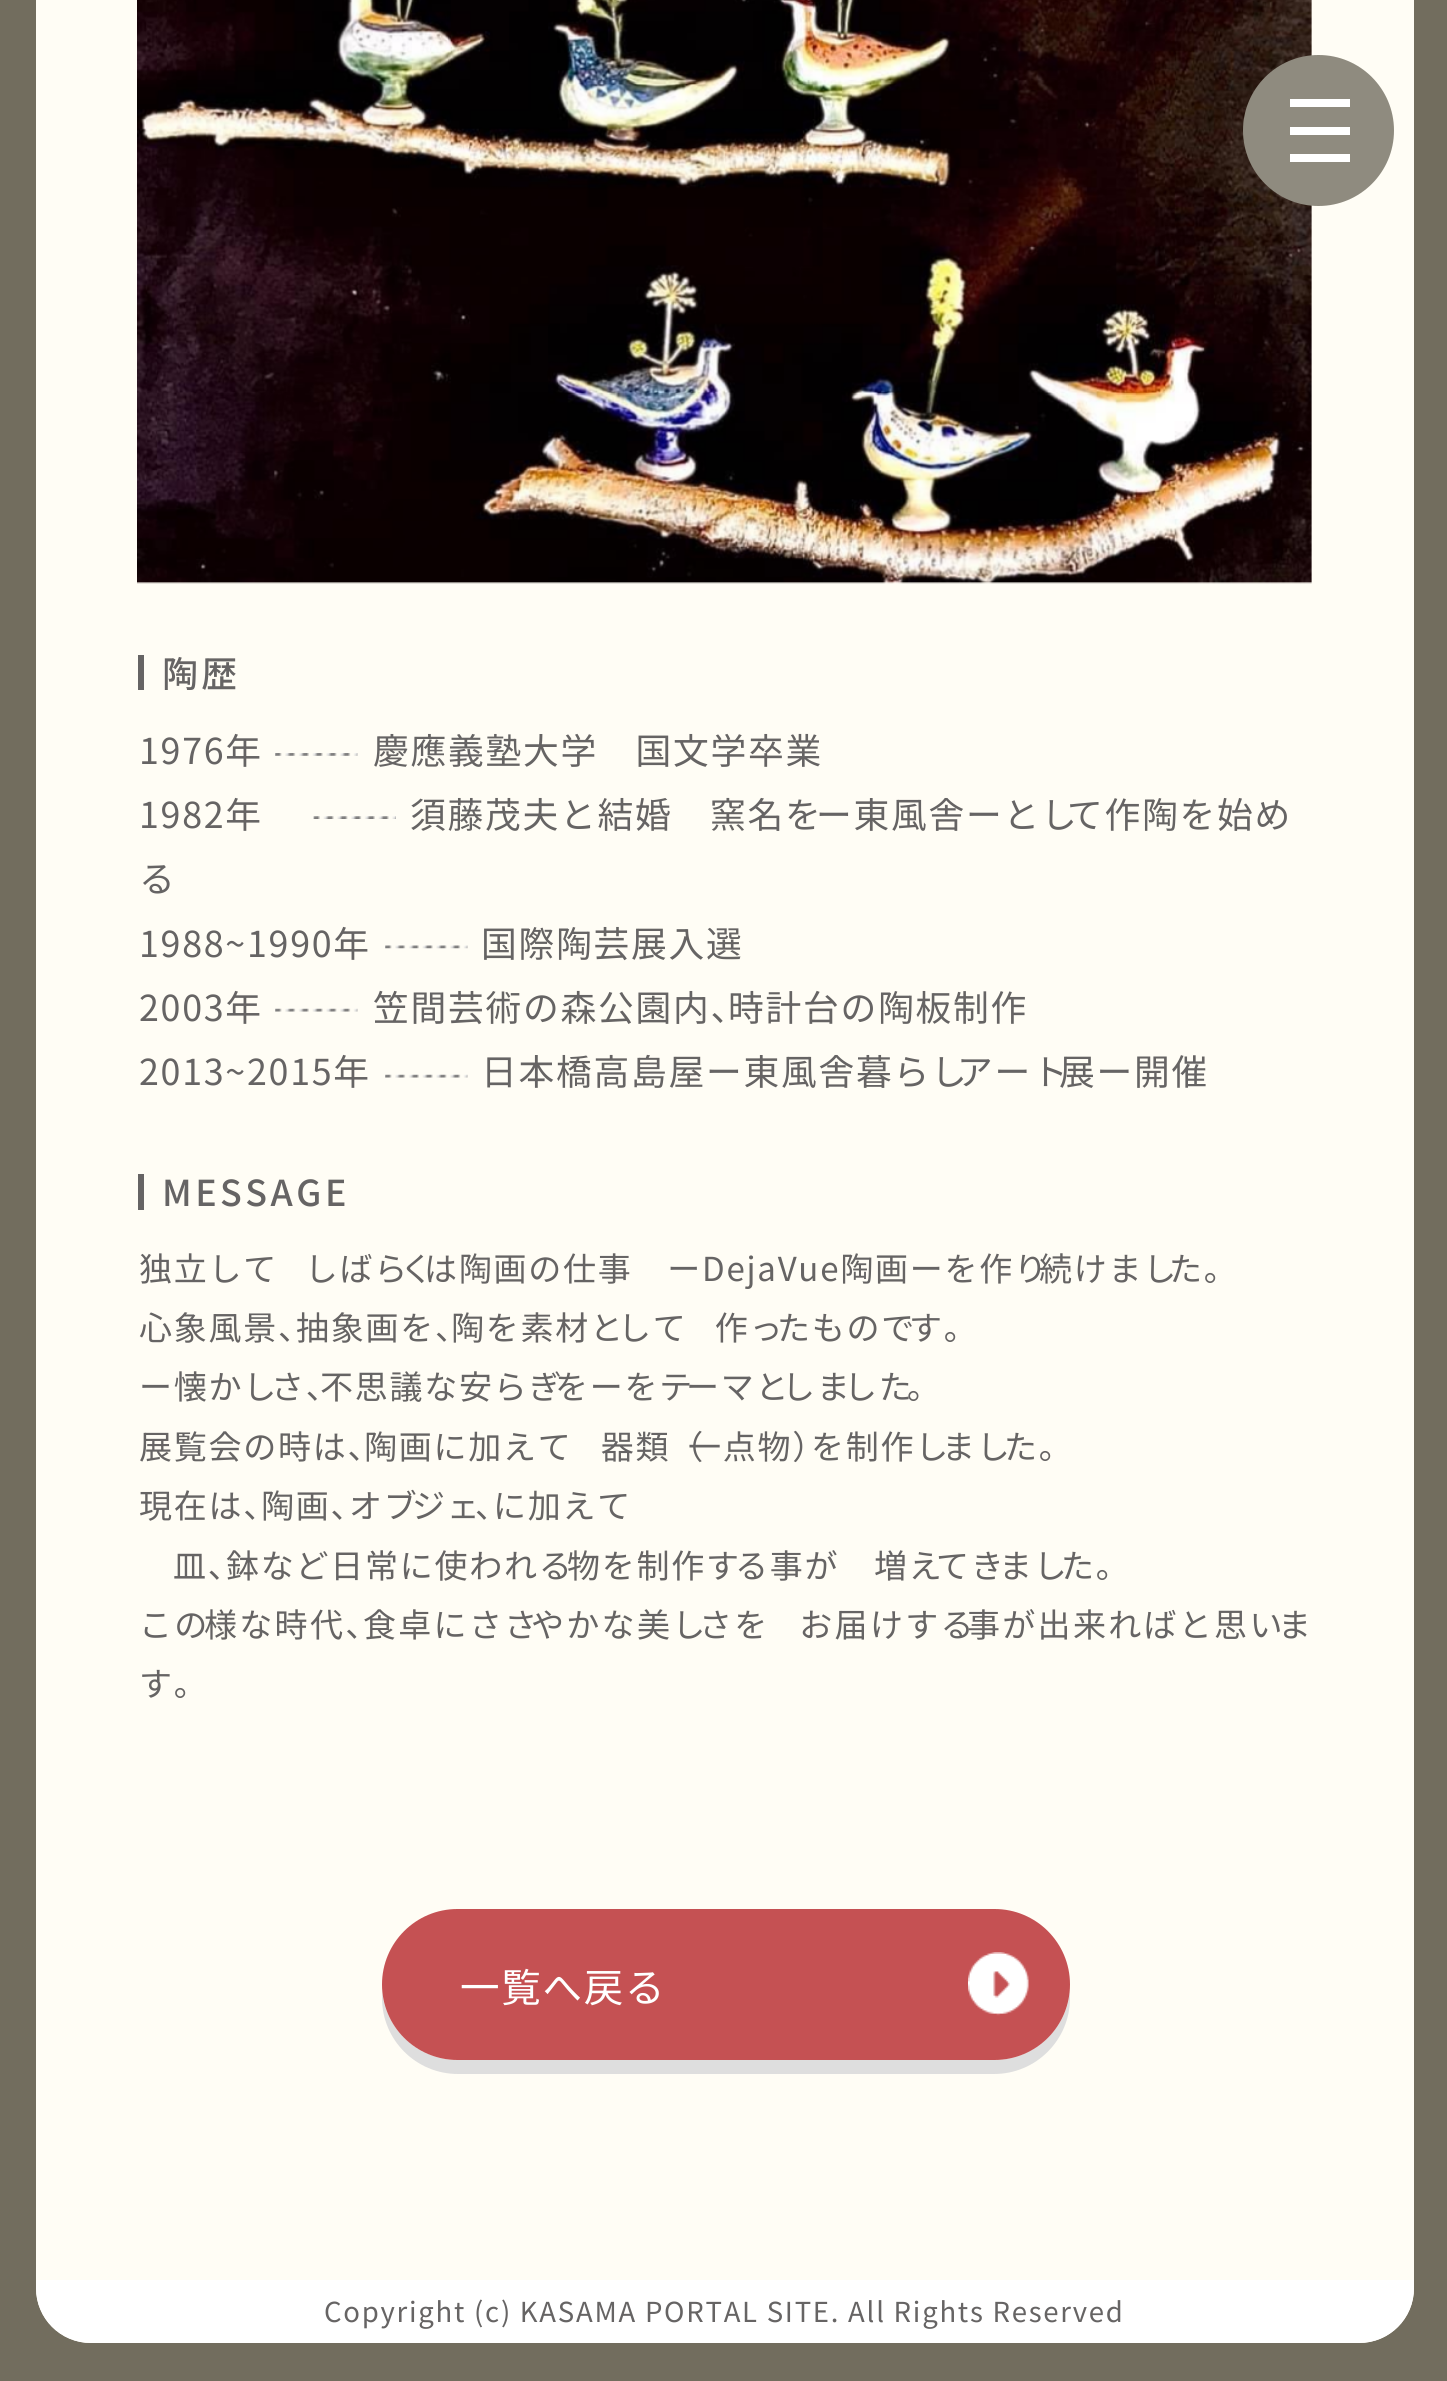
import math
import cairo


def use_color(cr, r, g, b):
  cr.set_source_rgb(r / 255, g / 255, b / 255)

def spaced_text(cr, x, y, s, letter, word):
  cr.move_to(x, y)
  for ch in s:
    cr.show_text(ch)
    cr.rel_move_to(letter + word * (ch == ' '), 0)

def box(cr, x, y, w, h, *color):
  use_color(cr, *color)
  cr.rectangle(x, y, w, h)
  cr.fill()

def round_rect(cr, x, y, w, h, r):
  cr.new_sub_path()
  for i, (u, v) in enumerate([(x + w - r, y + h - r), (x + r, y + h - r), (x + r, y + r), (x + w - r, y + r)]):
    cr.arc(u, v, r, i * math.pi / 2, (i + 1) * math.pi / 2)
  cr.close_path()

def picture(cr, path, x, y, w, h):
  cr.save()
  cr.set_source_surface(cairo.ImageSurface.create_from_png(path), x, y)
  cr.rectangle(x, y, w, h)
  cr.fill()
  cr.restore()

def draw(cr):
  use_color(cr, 114, 109, 94)
  cr.paint()
  use_color(cr, 255, 253, 245)
  cr.new_path()
  cr.move_to(36, -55)
  cr.line_to(1414, -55)
  cr.line_to(1414, 2288)
  cr.curve_to(1414, 2318.5, 1389.5, 2343, 1359, 2343)
  cr.line_to(91, 2343)
  cr.curve_to(60.5, 2343, 36, 2318.5, 36, 2288)
  cr.close_path()
  cr.fill()
  picture(cr, "img_01.png", 137, 0, 1175, 584)
  use_color(cr, 143, 139, 127)
  cr.arc(1318.5, 130.5, 75.5, 0, 2 * math.pi)
  cr.fill()
  box(cr, 1290, 99, 60, 8, 255, 255, 255)
  box(cr, 1290, 127, 60, 8, 255, 255, 255)
  box(cr, 1290, 154, 60, 8, 255, 255, 255)
  box(cr, 138, 655, 6, 35, 102, 100, 100)
  picture(cr, "img_02.png", 275, 753, 83, 3)
  picture(cr, "img_03.png", 313, 816, 83, 3)
  picture(cr, "img_04.png", 385, 945, 83, 4)
  picture(cr, "img_05.png", 275, 1008, 83, 4)
  picture(cr, "img_06.png", 385, 1074, 83, 4)
  box(cr, 138, 1174, 6, 36, 102, 100, 100)
  use_color(cr, 222, 222, 222)
  cr.new_path()
  cr.move_to(382, 1990)
  cr.line_to(382, 1998)
  cr.curve_to(382, 2040, 416, 2074, 458, 2074)
  cr.line_to(994, 2074)
  cr.curve_to(1036, 2074, 1070, 2040, 1070, 1998)
  cr.line_to(1070, 1990)
  cr.curve_to(1067, 2029, 1034, 2060, 994, 2060)
  cr.line_to(458, 2060)
  cr.curve_to(418, 2060, 385, 2029, 382, 1990)
  cr.close_path()
  cr.fill()
  use_color(cr, 197, 81, 83)
  round_rect(cr, 382, 1909, 688, 151, 75.5)
  cr.fill()
  picture(cr, "img_07.png", 968, 1952, 61, 64)
  use_color(cr, 255, 255, 255)
  cr.new_path()
  cr.move_to(36, 2280)
  cr.line_to(1414, 2280)
  cr.line_to(1414, 2288)
  cr.curve_to(1414, 2318.5, 1389.5, 2343, 1359, 2343)
  cr.line_to(91, 2343)
  cr.curve_to(60.5, 2343, 36, 2318.5, 36, 2288)
  cr.close_path()
  cr.fill()
  cr.select_font_face("Noto Sans JP Medium")
  cr.set_font_size(35.75)
  use_color(cr, 102, 100, 100)
  spaced_text(cr, 162, 687, "陶歴", 3.5, 0)
  cr.select_font_face("Noto Sans JP")
  spaced_text(cr, 139, 764, "1976年", 1.75, 0)
  spaced_text(cr, 373, 764, "慶應義塾大学　国文学卒業", 1.75, 0)
  spaced_text(cr, 139, 828, "1982年", 1.75, 0)
  spaced_text(cr, 410, 828, "須藤茂夫と結婚　窯名を", 1.75, 0)
  spaced_text(cr, 816, 828, "ー東風舎ーとし", 1.75, 0)
  spaced_text(cr, 1067, 828, "て作陶を始め", 1.75, 0)
  spaced_text(cr, 139, 892, "る", 1.75, 0)
  spaced_text(cr, 139, 957, "1988~1990年", 1.75, 0)
  spaced_text(cr, 481, 957, "国際陶芸展入選", 1.75, 0)
  spaced_text(cr, 139, 1021, "2003年", 1.75, 0)
  spaced_text(cr, 373, 1021, "笠間芸術の森公園内、", 1.75, 0)
  spaced_text(cr, 728, 1021, "時計台の陶板制作", 1.75, 0)
  spaced_text(cr, 139, 1085, "2013~2015年", 1.75, 0)
  spaced_text(cr, 481, 1085, "日本橋高島屋ー東風舎暮らし", 1.75, 0)
  spaced_text(cr, 957, 1085, "アート", 1.75, 0)
  spaced_text(cr, 1059, 1085, "展ー開催", 1.75, 0)
  cr.select_font_face("Noto Sans JP Medium")
  spaced_text(cr, 162, 1206, "MESSAGE", 3.5, 0)
  cr.select_font_face("Noto Sans JP")
  cr.set_font_size(33)
  spaced_text(cr, 139, 1281, "独立して", 1.75, 0)
  spaced_text(cr, 270, 1281, "　しばら", 1.75, 0)
  spaced_text(cr, 400, 1281, "く", 1.75, 0)
  spaced_text(cr, 424, 1281, "は陶画の仕事　ーDejaVue陶画ーを作り", 1.75, 0)
  spaced_text(cr, 1039, 1281, "続けまし", 1.75, 0)
  spaced_text(cr, 1169, 1281, "た。", 1.75, 0)
  spaced_text(cr, 139, 1340, "心象風景、", 1.75, 0)
  spaced_text(cr, 296, 1340, "抽象画を、", 1.75, 0)
  spaced_text(cr, 451, 1340, "陶を素材と", 1.75, 0)
  spaced_text(cr, 618, 1340, "して", 1.75, 0)
  spaced_text(cr, 680, 1340, "　作っ", 1.75, 0)
  spaced_text(cr, 777, 1340, "たもので", 1.75, 0)
  spaced_text(cr, 909, 1340, "す。", 1.75, 0)
  spaced_text(cr, 139, 1399, "ー懐かし", 1.75, 0)
  spaced_text(cr, 271, 1399, "さ、", 1.75, 0)
  spaced_text(cr, 320, 1399, "不思議な安らぎ", 1.75, 0)
  spaced_text(cr, 555, 1399, "をーをテ", 1.75, 0)
  spaced_text(cr, 686, 1399, "ーマと", 1.75, 0)
  spaced_text(cr, 782, 1399, "しま", 1.75, 0)
  spaced_text(cr, 844, 1399, "した", 1.75, 0)
  spaced_text(cr, 907, 1399, "。", 1.75, 0)
  spaced_text(cr, 139, 1459, "展覧会の時は、", 1.75, 0)
  spaced_text(cr, 364, 1459, "陶画に加えて", 1.75, 0)
  spaced_text(cr, 566, 1459, "　器類（", 1.75, 0)
  spaced_text(cr, 688, 1459, "一点物）", 1.75, 0)
  spaced_text(cr, 811, 1459, "を制作し", 1.75, 0)
  spaced_text(cr, 942, 1459, "まし", 1.75, 0)
  spaced_text(cr, 1004, 1459, "た。", 1.75, 0)
  spaced_text(cr, 139, 1518, "現在は、", 1.75, 0)
  spaced_text(cr, 261, 1518, "陶画、", 1.75, 0)
  spaced_text(cr, 349, 1518, "オブ", 1.75, 0)
  spaced_text(cr, 412, 1518, "ジェ", 1.75, 0)
  spaced_text(cr, 475, 1518, "、", 1.75, 0)
  spaced_text(cr, 493, 1518, "に加えて", 1.75, 0)
  spaced_text(cr, 173, 1578, "皿、", 1.75, 0)
  spaced_text(cr, 226, 1578, "鉢など日常に使われる", 1.75, 0)
  spaced_text(cr, 567, 1578, "物を制作す", 1.75, 0)
  spaced_text(cr, 735, 1578, "る事が　増え", 1.75, 0)
  spaced_text(cr, 936, 1578, "てき", 1.75, 0)
  spaced_text(cr, 999, 1578, "まし", 1.75, 0)
  spaced_text(cr, 1061, 1578, "た。", 1.75, 0)
  spaced_text(cr, 139, 1637, "この", 2.3, 0)
  spaced_text(cr, 204, 1637, "様な時代、", 2.3, 0)
  spaced_text(cr, 363, 1637, "食卓にささ", 2.3, 0)
  spaced_text(cr, 531, 1637, "やかな美し", 2.3, 0)
  spaced_text(cr, 699, 1637, "さを", 2.3, 0)
  spaced_text(cr, 764, 1637, "　お届けする", 2.3, 0)
  spaced_text(cr, 967, 1637, "事が出来ればと思い", 2.3, 0)
  spaced_text(cr, 1278, 1637, "ま", 2.3, 0)
  spaced_text(cr, 139, 1696, "す。", 1.75, 0)
  cr.set_font_size(39.5)
  use_color(cr, 255, 255, 255)
  spaced_text(cr, 460, 2002, "一覧へ戻る", 1.75, 0)
  cr.set_font_size(27.5)
  use_color(cr, 102, 100, 100)
  spaced_text(cr, 324, 2322, "Copyright (c) KASAMA PORTAL SITE. All Rights Reserved", 1.75, 0)


surface = cairo.ImageSurface(cairo.FORMAT_RGB24, 1447, 2381)
cr = cairo.Context(surface)
options = cairo.FontOptions()
options.set_hint_metrics(cairo.HINT_METRICS_OFF)
options.set_hint_style(cairo.HINT_STYLE_NONE)
cr.set_font_options(options)
cr.set_miter_limit(4)
draw(cr)
surface.write_to_png("out.png")
